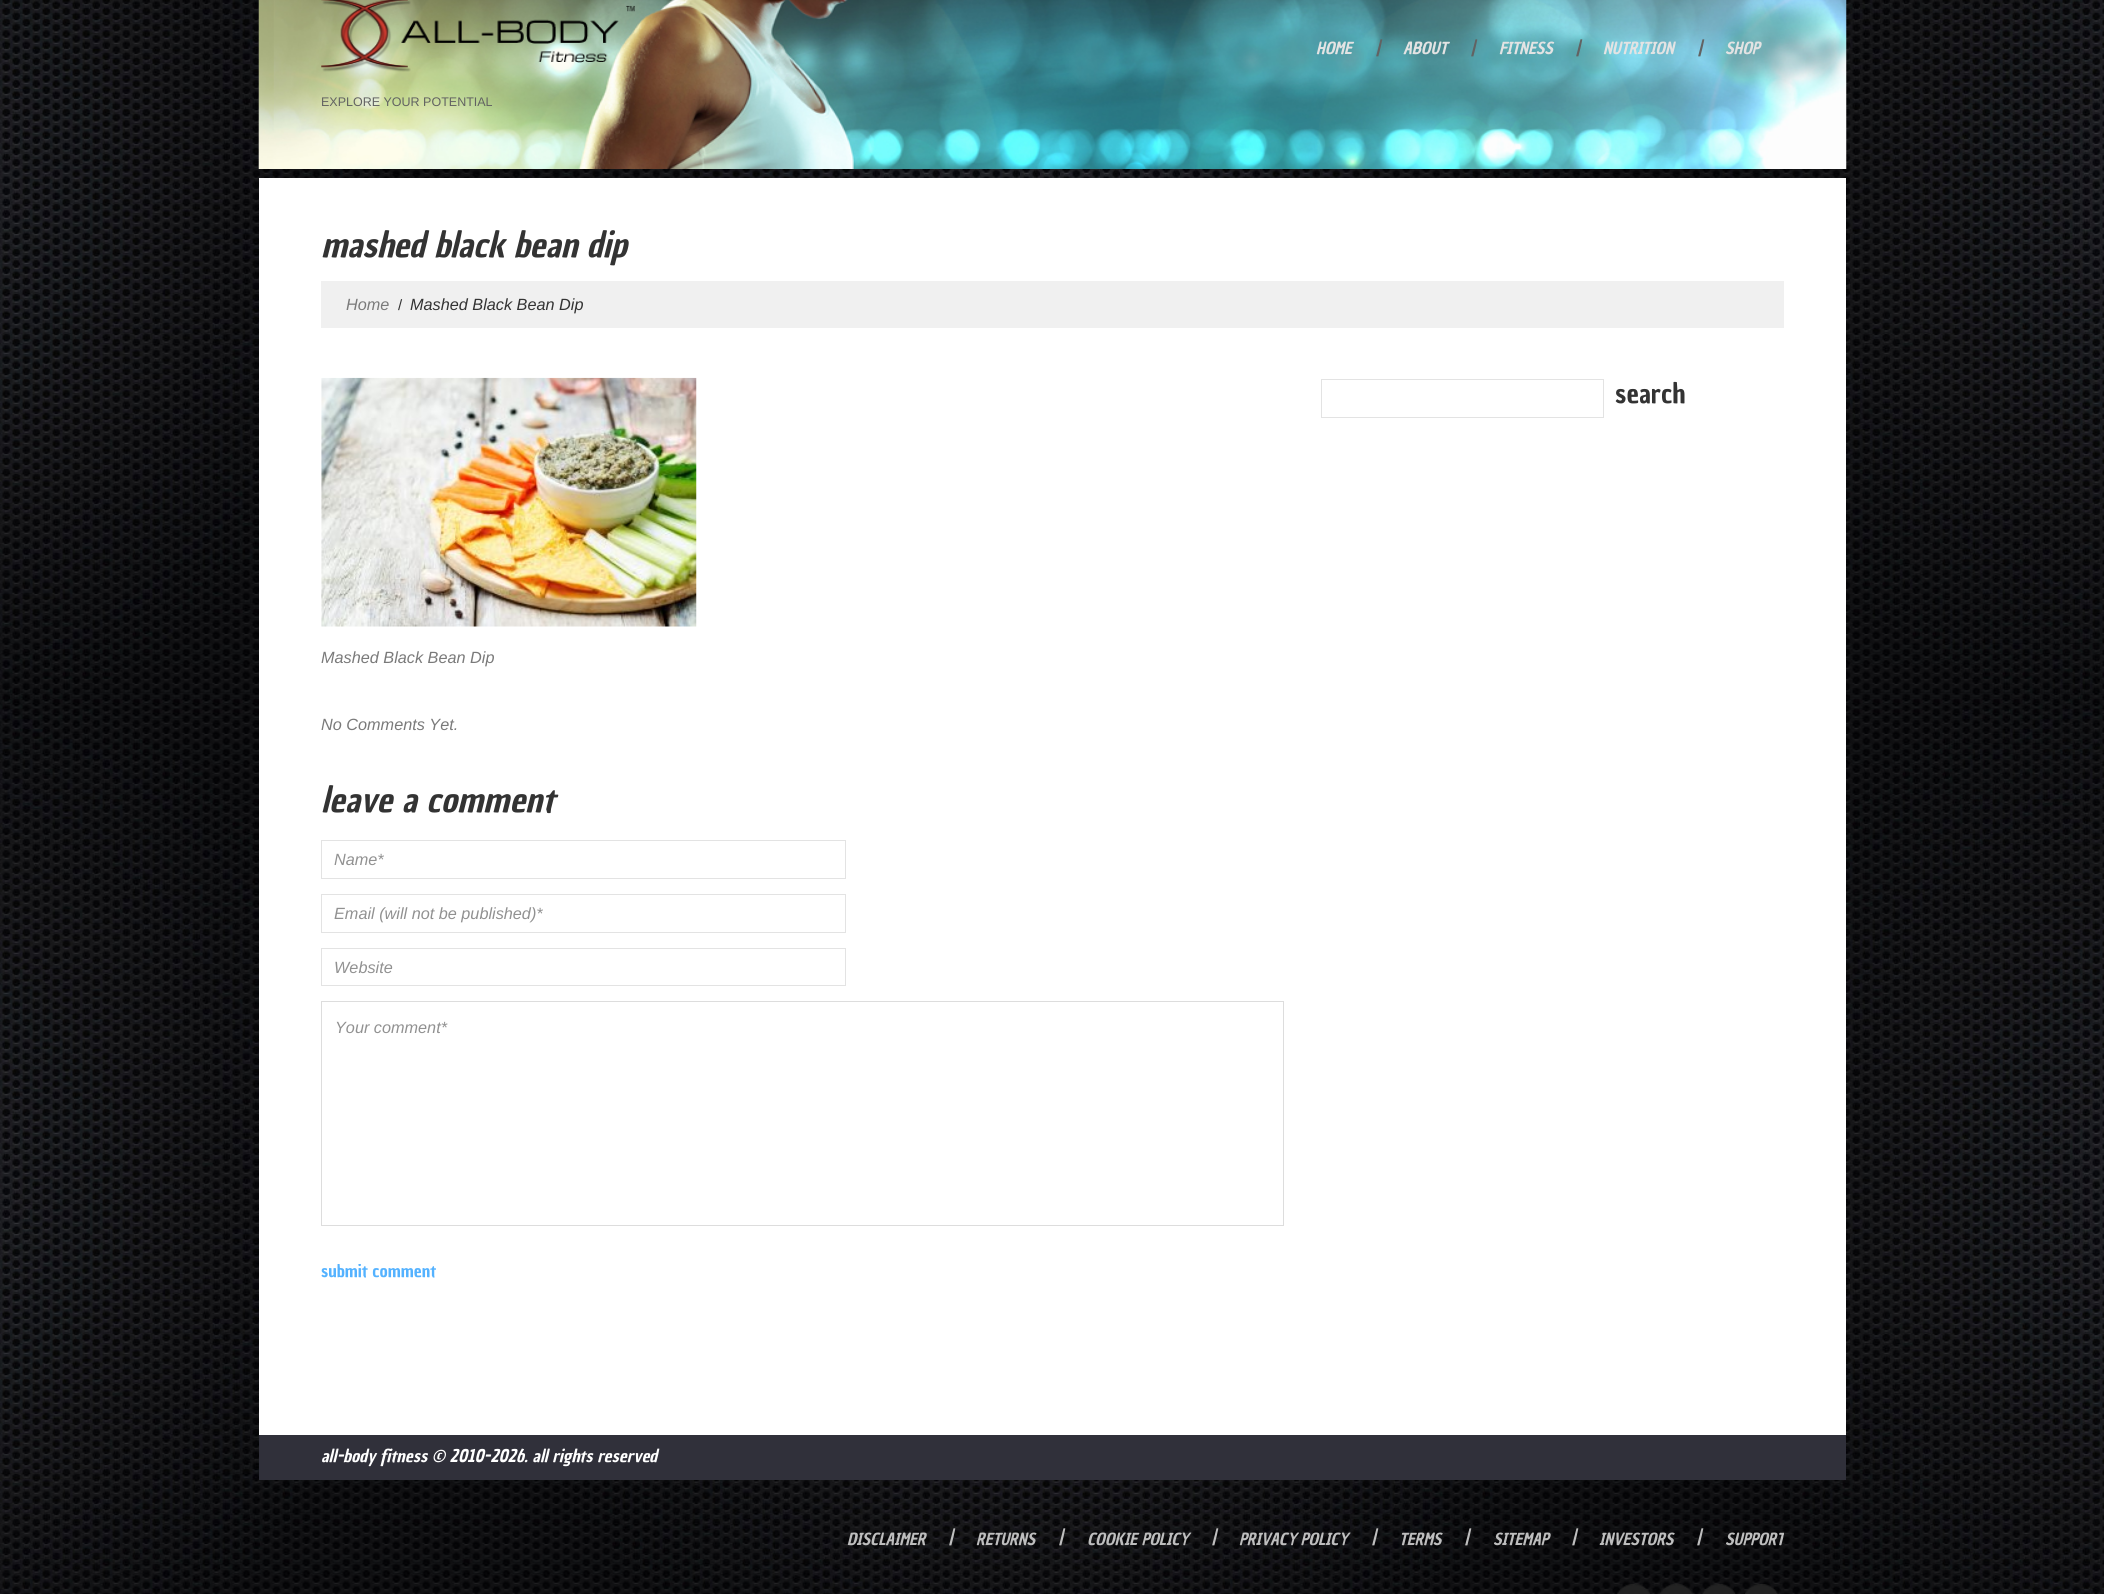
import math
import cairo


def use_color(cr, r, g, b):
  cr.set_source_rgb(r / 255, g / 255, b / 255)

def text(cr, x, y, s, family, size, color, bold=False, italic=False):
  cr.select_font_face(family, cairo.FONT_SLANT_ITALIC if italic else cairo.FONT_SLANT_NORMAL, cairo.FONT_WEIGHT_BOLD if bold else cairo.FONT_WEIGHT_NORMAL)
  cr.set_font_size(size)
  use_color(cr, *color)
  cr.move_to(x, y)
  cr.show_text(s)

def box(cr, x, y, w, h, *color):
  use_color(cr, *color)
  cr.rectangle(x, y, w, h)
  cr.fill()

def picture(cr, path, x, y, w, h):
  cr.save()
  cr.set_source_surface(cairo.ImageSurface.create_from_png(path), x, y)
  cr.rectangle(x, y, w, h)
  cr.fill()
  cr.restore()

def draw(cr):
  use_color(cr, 255, 255, 255)
  cr.paint()
  picture(cr, "img_01.png", 0, 0, 2104, 1594)
  picture(cr, "img_02.png", 258, 0, 1589, 169)
  picture(cr, "img_03.png", 321, 0, 314, 72)
  box(cr, 259, 178, 1587, 1257, 255, 255, 255)
  box(cr, 321, 281, 1463, 47, 240, 240, 240)
  cr.rectangle(1321.5, 379.5, 282, 38)
  use_color(cr, 227, 227, 227)
  cr.set_line_width(1)
  cr.stroke()
  picture(cr, "img_04.png", 321, 377, 376, 250)
  cr.rectangle(321.5, 840.5, 524, 38)
  cr.stroke()
  cr.rectangle(321.5, 894.5, 524, 38)
  cr.stroke()
  cr.rectangle(321.5, 948.5, 524, 37)
  cr.stroke()
  cr.rectangle(321.5, 1001.5, 962, 224)
  use_color(cr, 221, 221, 221)
  cr.stroke()
  box(cr, 259, 1435, 1587, 45, 48, 48, 58)
  picture(cr, "img_05.png", 1617, 1584, 33, 10)
  picture(cr, "img_06.png", 1660, 1584, 33, 10)
  picture(cr, "img_07.png", 1702, 1584, 34, 10)
  picture(cr, "img_08.png", 1745, 1584, 33, 10)
  text(cr, 1316, 54, "HOME", "Chau Philomene One", 16.25, (227, 227, 227), italic=True)
  text(cr, 1376, 54, "|", "Chau Philomene One", 16.25, (98, 98, 98), italic=True)
  text(cr, 1403, 54, "ABOUT", "Chau Philomene One", 16.25, (227, 227, 227), italic=True)
  text(cr, 1471, 54, "|", "Chau Philomene One", 16.25, (98, 98, 98), italic=True)
  text(cr, 1499, 54, "FITNESS", "Chau Philomene One", 16.25, (227, 227, 227), italic=True)
  text(cr, 1576, 54, "|", "Chau Philomene One", 16.25, (98, 98, 98), italic=True)
  text(cr, 1603, 54, "NUTRITION", "Chau Philomene One", 16.25, (227, 227, 227), italic=True)
  text(cr, 1698, 54, "|", "Chau Philomene One", 16.25, (98, 98, 98), italic=True)
  text(cr, 1725, 54, "SHOP", "Chau Philomene One", 16.25, (227, 227, 227), italic=True)
  text(cr, 321, 106, "EXPLORE YOUR POTENTIAL", "Liberation Sans", 12.5, (98, 98, 98))
  text(cr, 321, 257, "mashed black bean dip", "Chau Philomene One", 35, (51, 51, 51), italic=True)
  text(cr, 346, 310, "Home", "Liberation Sans", 16.25, (122, 122, 122), italic=True)
  text(cr, 398, 310, "/", "Liberation Sans", 15, (51, 51, 51))
  text(cr, 410, 310, "Mashed Black Bean Dip", "Liberation Sans", 16.25, (51, 51, 51), italic=True)
  text(cr, 1615, 403, "search", "Chau Philomene One", 27.5, (51, 51, 51))
  text(cr, 321, 663, "Mashed Black Bean Dip", "Liberation Sans", 16.25, (122, 122, 122), italic=True)
  text(cr, 321, 730, "No Comments Yet.", "Liberation Sans", 16.25, (122, 122, 122), italic=True)
  text(cr, 321, 812, "leave a comment", "Chau Philomene One", 35, (51, 51, 51), italic=True)
  text(cr, 334, 865, "Name*", "Liberation Sans", 16.25, (145, 145, 145), italic=True)
  text(cr, 334, 919, "Email (will not be published)*", "Liberation Sans", 16.25, (145, 145, 145), italic=True)
  text(cr, 334, 973, "Website", "Liberation Sans", 16.25, (145, 145, 145), italic=True)
  text(cr, 335, 1033, "Your comment*", "Liberation Sans", 16.25, (145, 145, 145), italic=True)
  cr.save()
  cr.rectangle(321, 1264, 118, 17)
  cr.clip()
  text(cr, 321, 1277, "submit comment", "Chau Philomene One", 17.5, (84, 178, 255))
  cr.restore()
  text(cr, 321, 1462, "all-body fitness © 2010-2026. all rights reserved", "Chau Philomene One", 17.5, (255, 255, 255), italic=True)
  text(cr, 847, 1545, "DISCLAIMER", "Chau Philomene One", 16.25, (190, 190, 190), italic=True)
  text(cr, 949, 1543, "|", "Chau Philomene One", 16.25, (190, 190, 190), italic=True)
  text(cr, 976, 1545, "RETURNS", "Chau Philomene One", 16.25, (190, 190, 190), italic=True)
  text(cr, 1059, 1543, "|", "Chau Philomene One", 16.25, (190, 190, 190), italic=True)
  text(cr, 1087, 1545, "COOKIE POLICY", "Chau Philomene One", 16.25, (190, 190, 190), italic=True)
  text(cr, 1212, 1543, "|", "Chau Philomene One", 16.25, (190, 190, 190), italic=True)
  text(cr, 1239, 1545, "PRIVACY POLICY", "Chau Philomene One", 16.25, (190, 190, 190), italic=True)
  text(cr, 1372, 1543, "|", "Chau Philomene One", 16.25, (190, 190, 190), italic=True)
  text(cr, 1399, 1545, "TERMS", "Chau Philomene One", 16.25, (190, 190, 190), italic=True)
  text(cr, 1465, 1543, "|", "Chau Philomene One", 16.25, (190, 190, 190), italic=True)
  text(cr, 1493, 1545, "SITEMAP", "Chau Philomene One", 16.25, (190, 190, 190), italic=True)
  text(cr, 1572, 1543, "|", "Chau Philomene One", 16.25, (190, 190, 190), italic=True)
  text(cr, 1599, 1545, "INVESTORS", "Chau Philomene One", 16.25, (190, 190, 190), italic=True)
  text(cr, 1697, 1543, "|", "Chau Philomene One", 16.25, (190, 190, 190), italic=True)
  cr.save()
  cr.rectangle(846, 1503, 938, 48)
  cr.clip()
  text(cr, 1725, 1545, "SUPPORT", "Chau Philomene One", 16.25, (190, 190, 190), italic=True)
  cr.restore()


surface = cairo.ImageSurface(cairo.FORMAT_RGB24, 2104, 1594)
cr = cairo.Context(surface)
options = cairo.FontOptions()
options.set_hint_metrics(cairo.HINT_METRICS_OFF)
options.set_hint_style(cairo.HINT_STYLE_NONE)
cr.set_font_options(options)
cr.set_miter_limit(4)
draw(cr)
surface.write_to_png("out.png")
